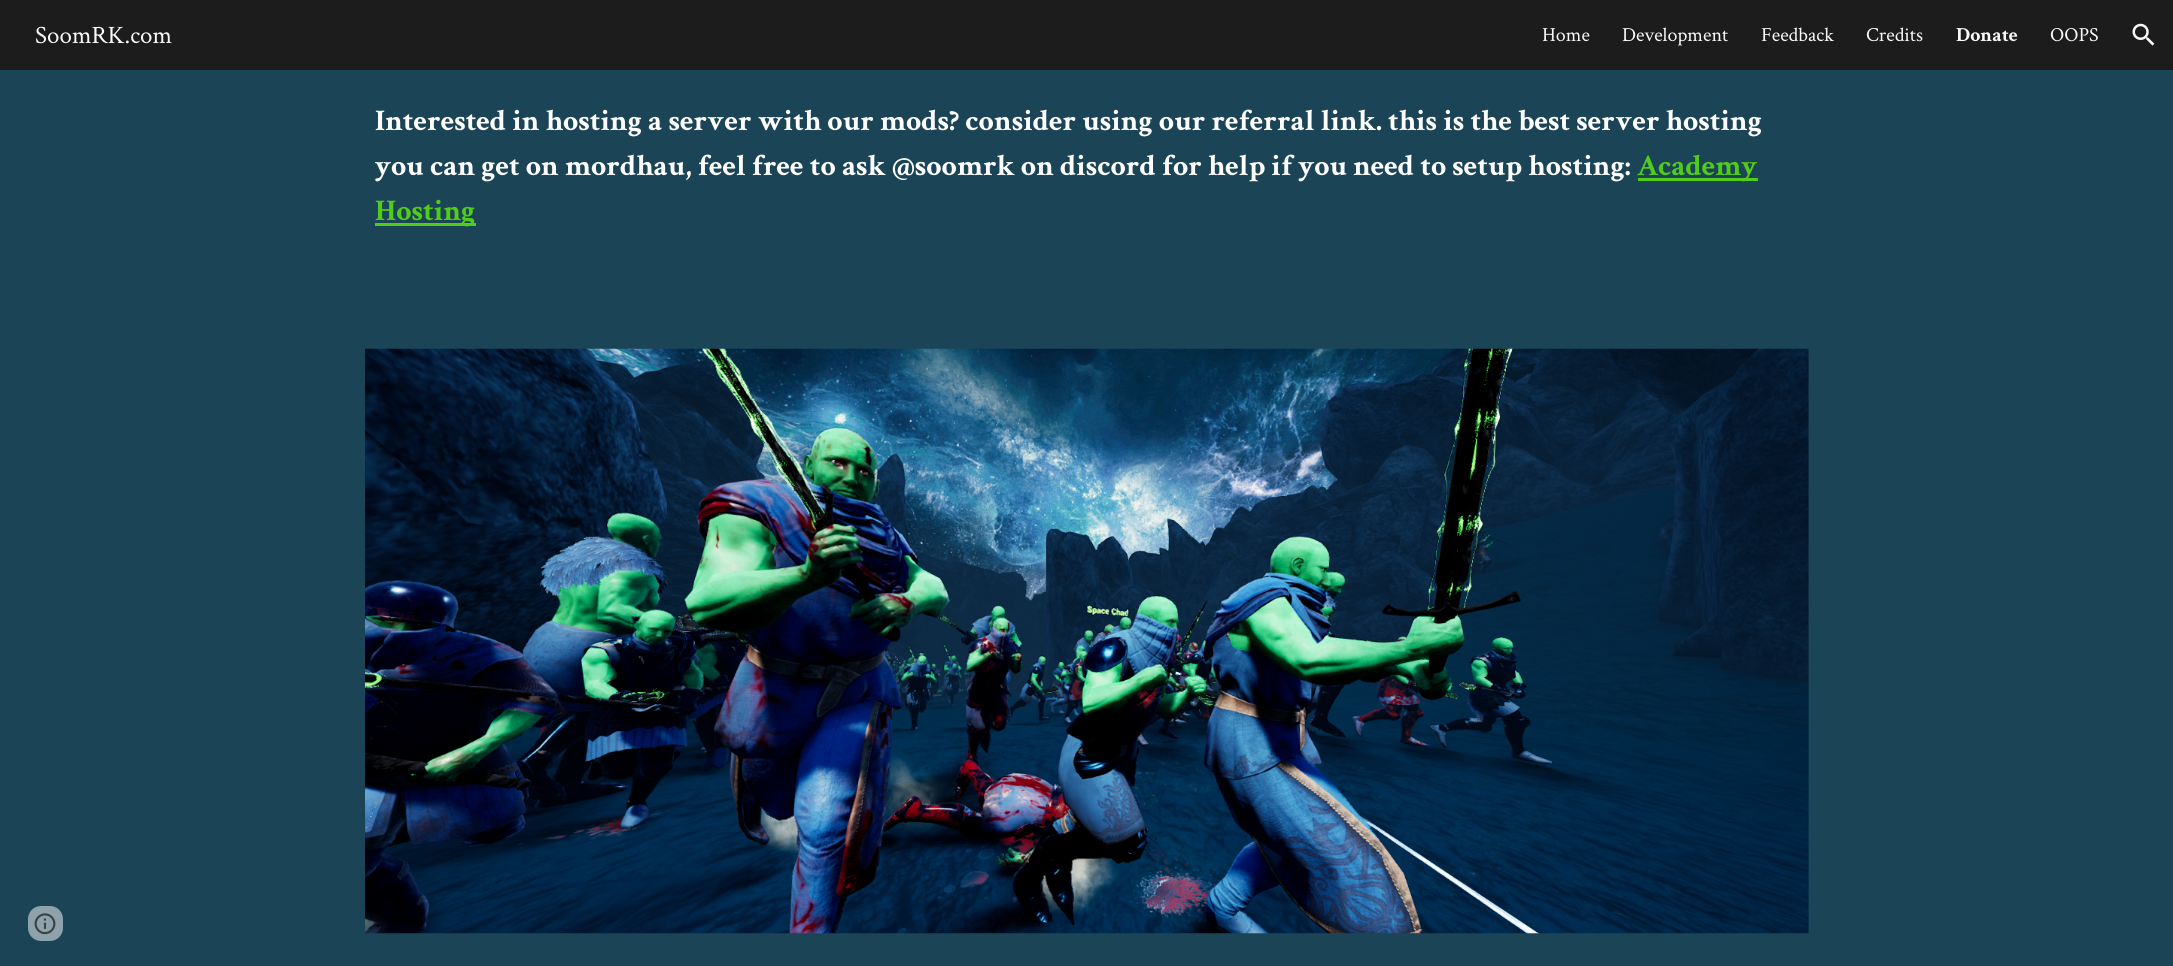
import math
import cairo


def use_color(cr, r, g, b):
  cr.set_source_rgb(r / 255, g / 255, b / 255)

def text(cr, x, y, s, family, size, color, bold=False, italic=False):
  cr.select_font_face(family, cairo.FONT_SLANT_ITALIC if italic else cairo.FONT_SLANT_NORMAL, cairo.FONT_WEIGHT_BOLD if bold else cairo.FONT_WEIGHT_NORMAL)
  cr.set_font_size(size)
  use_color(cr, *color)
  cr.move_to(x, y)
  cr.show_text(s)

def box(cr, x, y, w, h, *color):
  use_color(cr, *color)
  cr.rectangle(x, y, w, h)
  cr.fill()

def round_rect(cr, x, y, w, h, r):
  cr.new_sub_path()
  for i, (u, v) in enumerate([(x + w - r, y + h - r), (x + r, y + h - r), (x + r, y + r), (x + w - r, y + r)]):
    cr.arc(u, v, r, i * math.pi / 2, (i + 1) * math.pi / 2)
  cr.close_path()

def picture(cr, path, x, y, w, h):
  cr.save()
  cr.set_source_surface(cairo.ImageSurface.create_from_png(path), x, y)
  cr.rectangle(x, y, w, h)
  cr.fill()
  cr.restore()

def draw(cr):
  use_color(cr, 27, 69, 87)
  cr.paint()
  box(cr, 0, 0, 2173, 70, 28, 28, 28)
  picture(cr, "img_01.png", 2132, 23, 23, 23)
  box(cr, 1638, 178, 120, 3, 81, 204, 24)
  box(cr, 375, 223, 101, 3, 81, 204, 24)
  picture(cr, "img_02.png", 365, 348, 1444, 586)
  use_color(cr, 141, 162, 171)
  round_rect(cr, 28, 906, 35, 35, 13)
  cr.fill()
  picture(cr, "img_03.png", 34, 913, 22, 22)
  text(cr, 35, 43, "SoomRK.com", "Crimson Text", 25, (249, 249, 249))
  text(cr, 1542, 41, "Home", "Crimson Text", 20, (249, 249, 249))
  text(cr, 1622, 41, "Development", "Crimson Text", 20, (249, 249, 249))
  text(cr, 1761, 41, "Feedback", "Crimson Text", 20, (249, 249, 249))
  text(cr, 1866, 41, "Credits", "Crimson Text", 20, (249, 249, 249))
  text(cr, 1956, 41, "Donate", "Crimson Text", 20, (249, 249, 249), bold=True)
  text(cr, 2050, 41, "OOPS", "Crimson Text", 20, (249, 249, 249))
  text(cr, 375, 130, "Interested in hosting a server with our mods? consider using our referral link. this is the best server hosting", "Crimson Text", 30, (255, 255, 255), bold=True)
  text(cr, 375, 175, "you can get on mordhau, feel free to ask @soomrk on discord for help if you need to setup hosting:", "Crimson Text", 30, (255, 255, 255), bold=True)
  text(cr, 1637, 175, "Academy", "Crimson Text", 30, (81, 204, 24), bold=True)
  text(cr, 375, 220, "Hosting", "Crimson Text", 30, (81, 204, 24), bold=True)


surface = cairo.ImageSurface(cairo.FORMAT_RGB24, 2173, 966)
cr = cairo.Context(surface)
options = cairo.FontOptions()
options.set_hint_metrics(cairo.HINT_METRICS_OFF)
options.set_hint_style(cairo.HINT_STYLE_NONE)
cr.set_font_options(options)
cr.set_miter_limit(4)
draw(cr)
surface.write_to_png("out.png")
